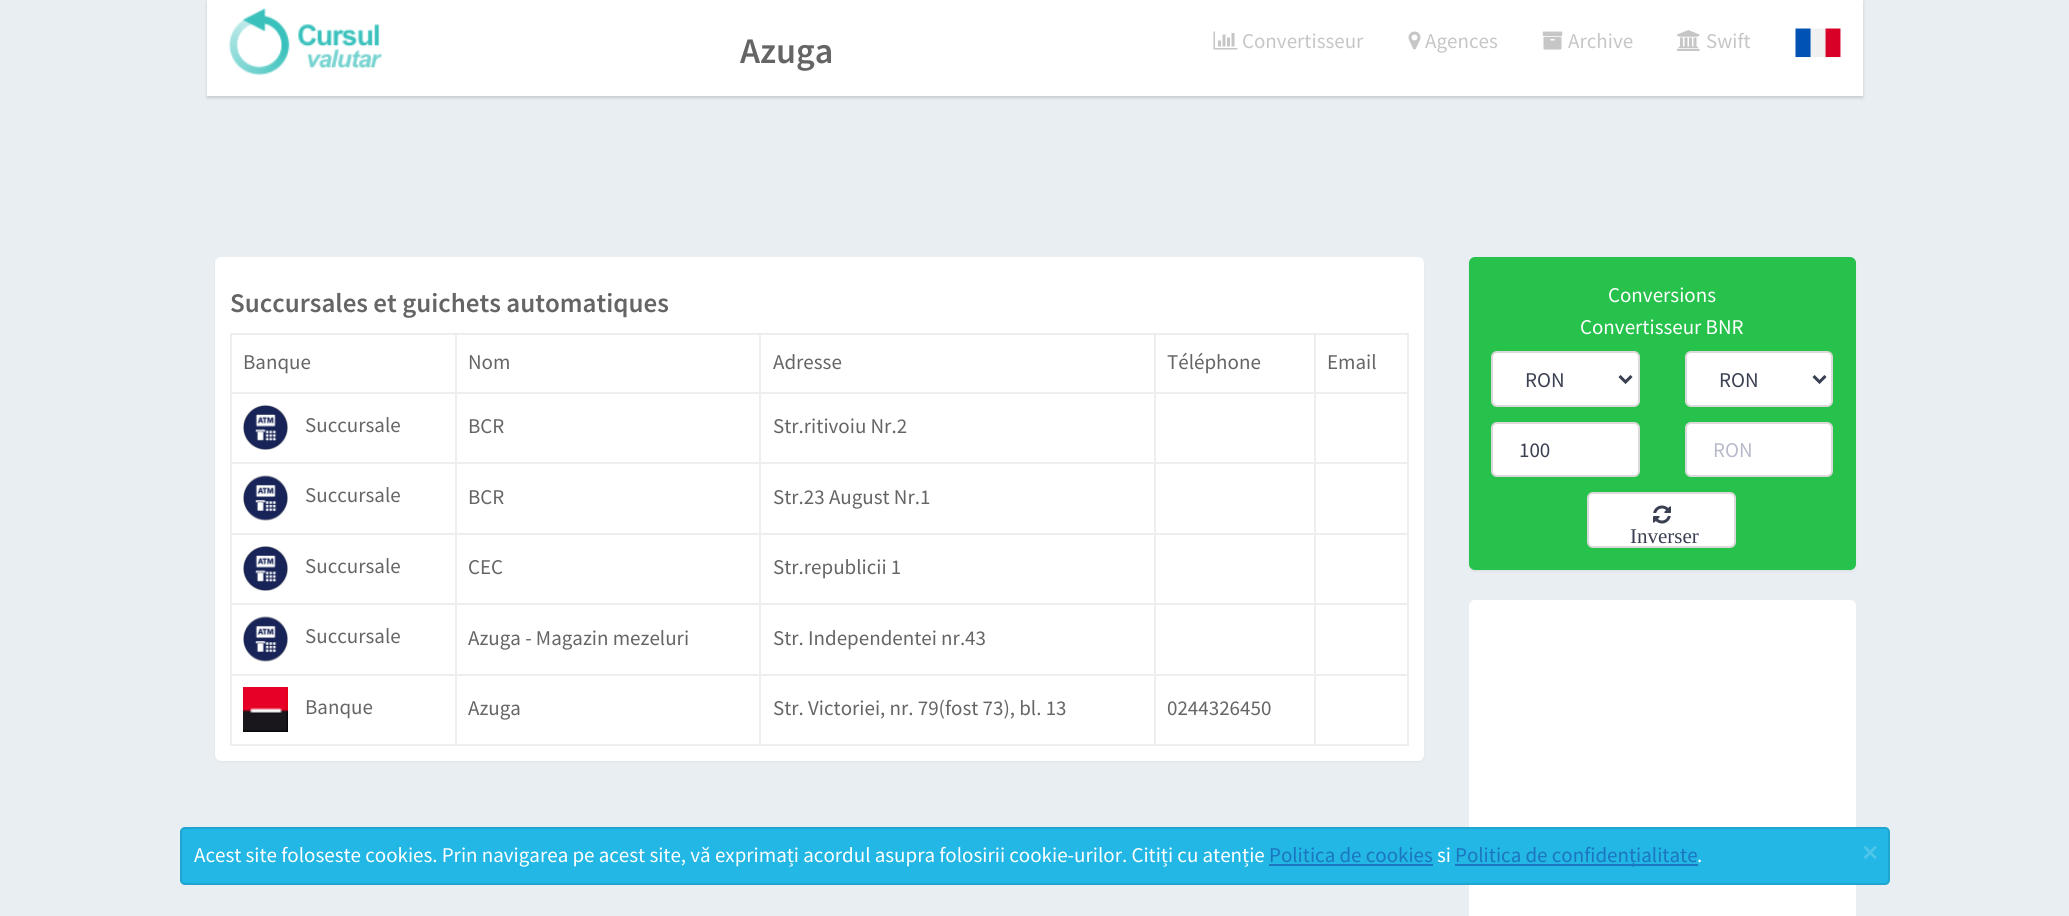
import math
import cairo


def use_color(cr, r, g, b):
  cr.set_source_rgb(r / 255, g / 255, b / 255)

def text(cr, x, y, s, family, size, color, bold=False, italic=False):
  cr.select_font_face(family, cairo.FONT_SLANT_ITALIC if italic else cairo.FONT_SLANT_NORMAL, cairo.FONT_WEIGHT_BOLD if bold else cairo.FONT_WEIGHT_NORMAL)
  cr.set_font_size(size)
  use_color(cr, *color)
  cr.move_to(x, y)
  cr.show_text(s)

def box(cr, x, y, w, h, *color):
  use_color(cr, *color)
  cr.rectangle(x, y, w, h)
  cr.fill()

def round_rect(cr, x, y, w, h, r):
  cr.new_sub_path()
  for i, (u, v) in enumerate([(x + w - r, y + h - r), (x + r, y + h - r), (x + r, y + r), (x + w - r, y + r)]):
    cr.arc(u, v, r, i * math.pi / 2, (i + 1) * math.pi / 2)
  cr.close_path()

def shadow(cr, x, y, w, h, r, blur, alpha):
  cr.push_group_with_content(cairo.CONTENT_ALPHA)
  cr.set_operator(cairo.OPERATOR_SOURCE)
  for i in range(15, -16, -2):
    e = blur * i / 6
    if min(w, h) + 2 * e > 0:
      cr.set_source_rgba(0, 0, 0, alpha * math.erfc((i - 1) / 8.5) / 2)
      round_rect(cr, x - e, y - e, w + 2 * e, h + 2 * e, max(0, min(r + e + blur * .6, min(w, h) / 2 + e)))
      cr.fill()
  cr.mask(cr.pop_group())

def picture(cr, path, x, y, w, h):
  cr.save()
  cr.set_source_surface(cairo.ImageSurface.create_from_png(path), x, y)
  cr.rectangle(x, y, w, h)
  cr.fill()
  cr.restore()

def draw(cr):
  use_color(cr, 232, 238, 242)
  cr.paint()
  use_color(cr, 0, 0, 0)
  shadow(cr, 207, 2, 1656, 96, 0, 1.5, 0.15)
  box(cr, 207, 0, 1656, 96, 255, 255, 255)
  picture(cr, "img_01.png", 229, 8, 154, 67)
  picture(cr, "img_02.png", 1213, 31, 25, 19)
  picture(cr, "img_03.png", 1408, 31, 13, 19)
  picture(cr, "img_04.png", 1542, 31, 21, 19)
  picture(cr, "img_05.png", 1677, 30, 23, 21)
  picture(cr, "img_06.png", 1795, 28, 46, 30)
  use_color(cr, 0, 0, 0)
  shadow(cr, 215, 258, 1209, 504, 6, 1, 0.05)
  use_color(cr, 255, 255, 255)
  round_rect(cr, 215, 257, 1209, 504, 6)
  cr.fill()
  box(cr, 1314, 333, 95, 2, 238, 238, 238)
  box(cr, 1314, 392, 95, 2, 238, 238, 238)
  box(cr, 1314, 462, 95, 2, 238, 238, 238)
  box(cr, 1314, 533, 95, 2, 238, 238, 238)
  box(cr, 1314, 603, 95, 2, 238, 238, 238)
  box(cr, 1314, 674, 95, 2, 238, 238, 238)
  box(cr, 1407, 674, 2, 72, 238, 238, 238)
  box(cr, 1314, 744, 95, 2, 238, 238, 238)
  box(cr, 1314, 674, 2, 72, 238, 238, 238)
  box(cr, 1154, 674, 162, 2, 238, 238, 238)
  box(cr, 1314, 603, 2, 72, 238, 238, 238)
  box(cr, 1154, 603, 162, 2, 238, 238, 238)
  box(cr, 1314, 533, 2, 72, 238, 238, 238)
  box(cr, 1154, 533, 162, 2, 238, 238, 238)
  box(cr, 1314, 462, 2, 72, 238, 238, 238)
  box(cr, 1154, 462, 162, 2, 238, 238, 238)
  box(cr, 1314, 392, 2, 72, 238, 238, 238)
  box(cr, 1154, 392, 162, 2, 238, 238, 238)
  box(cr, 1314, 333, 2, 60, 238, 238, 238)
  box(cr, 1154, 333, 162, 2, 238, 238, 238)
  box(cr, 1154, 744, 162, 2, 238, 238, 238)
  box(cr, 1154, 674, 2, 72, 238, 238, 238)
  box(cr, 759, 674, 396, 2, 238, 238, 238)
  box(cr, 1154, 603, 2, 72, 238, 238, 238)
  box(cr, 759, 603, 396, 2, 238, 238, 238)
  box(cr, 1154, 533, 2, 72, 238, 238, 238)
  box(cr, 759, 533, 396, 2, 238, 238, 238)
  box(cr, 1154, 462, 2, 72, 238, 238, 238)
  box(cr, 759, 462, 396, 2, 238, 238, 238)
  box(cr, 1154, 392, 2, 72, 238, 238, 238)
  box(cr, 759, 392, 396, 2, 238, 238, 238)
  box(cr, 1154, 333, 2, 60, 238, 238, 238)
  box(cr, 759, 333, 396, 2, 238, 238, 238)
  box(cr, 759, 744, 396, 2, 238, 238, 238)
  box(cr, 759, 674, 2, 72, 238, 238, 238)
  box(cr, 455, 674, 306, 2, 238, 238, 238)
  box(cr, 759, 603, 2, 72, 238, 238, 238)
  box(cr, 455, 603, 306, 2, 238, 238, 238)
  box(cr, 759, 533, 2, 72, 238, 238, 238)
  box(cr, 455, 533, 306, 2, 238, 238, 238)
  box(cr, 759, 462, 2, 72, 238, 238, 238)
  box(cr, 455, 462, 306, 2, 238, 238, 238)
  box(cr, 759, 392, 2, 72, 238, 238, 238)
  box(cr, 455, 392, 306, 2, 238, 238, 238)
  box(cr, 759, 333, 2, 60, 238, 238, 238)
  box(cr, 455, 333, 306, 2, 238, 238, 238)
  box(cr, 455, 744, 306, 2, 238, 238, 238)
  box(cr, 455, 674, 2, 72, 238, 238, 238)
  box(cr, 230, 674, 226, 2, 238, 238, 238)
  box(cr, 455, 603, 2, 72, 238, 238, 238)
  box(cr, 230, 603, 226, 2, 238, 238, 238)
  box(cr, 455, 533, 2, 72, 238, 238, 238)
  box(cr, 230, 533, 226, 2, 238, 238, 238)
  box(cr, 455, 462, 2, 72, 238, 238, 238)
  box(cr, 230, 462, 226, 2, 238, 238, 238)
  box(cr, 455, 392, 2, 72, 238, 238, 238)
  box(cr, 230, 392, 226, 2, 238, 238, 238)
  box(cr, 455, 333, 2, 60, 238, 238, 238)
  box(cr, 230, 333, 226, 2, 238, 238, 238)
  box(cr, 230, 744, 226, 2, 238, 238, 238)
  box(cr, 230, 674, 2, 72, 238, 238, 238)
  box(cr, 230, 603, 2, 72, 238, 238, 238)
  box(cr, 230, 533, 2, 72, 238, 238, 238)
  box(cr, 230, 462, 2, 72, 238, 238, 238)
  box(cr, 230, 392, 2, 72, 238, 238, 238)
  box(cr, 230, 333, 2, 60, 238, 238, 238)
  box(cr, 1407, 603, 2, 72, 238, 238, 238)
  box(cr, 1407, 533, 2, 72, 238, 238, 238)
  box(cr, 1407, 462, 2, 72, 238, 238, 238)
  box(cr, 1407, 392, 2, 72, 238, 238, 238)
  box(cr, 1407, 333, 2, 60, 238, 238, 238)
  picture(cr, "img_07.png", 243, 405, 45, 45)
  picture(cr, "img_08.png", 243, 475, 45, 46)
  picture(cr, "img_07.png", 243, 546, 45, 45)
  picture(cr, "img_08.png", 243, 616, 45, 46)
  picture(cr, "img_09.png", 243, 687, 45, 45)
  use_color(cr, 0, 0, 0)
  shadow(cr, 1469, 258, 387, 314, 6, 1, 0.05)
  use_color(cr, 39, 194, 76)
  round_rect(cr, 1469, 257, 387, 313, 6)
  cr.fill()
  use_color(cr, 255, 255, 255)
  round_rect(cr, 1492, 352, 147, 54, 5)
  cr.fill_preserve()
  use_color(cr, 219, 217, 217)
  cr.stroke()
  cr.new_path()
  cr.move_to(1619.5, 376)
  cr.line_to(1625.5, 382)
  cr.line_to(1631.5, 376)
  use_color(cr, 58, 63, 81)
  cr.set_line_width(3)
  cr.stroke()
  use_color(cr, 255, 255, 255)
  round_rect(cr, 1686, 352, 146, 54, 5)
  cr.fill_preserve()
  use_color(cr, 219, 217, 217)
  cr.set_line_width(2)
  cr.stroke()
  cr.new_path()
  cr.move_to(1813.5, 376)
  cr.line_to(1819.5, 382)
  cr.line_to(1825.5, 376)
  use_color(cr, 58, 63, 81)
  cr.set_line_width(3)
  cr.stroke()
  use_color(cr, 255, 255, 255)
  round_rect(cr, 1492, 423, 147, 53, 5)
  cr.fill_preserve()
  use_color(cr, 219, 217, 217)
  cr.set_line_width(2)
  cr.stroke()
  use_color(cr, 255, 255, 255)
  round_rect(cr, 1686, 423, 146, 53, 5)
  cr.fill_preserve()
  use_color(cr, 219, 217, 217)
  cr.stroke()
  use_color(cr, 255, 255, 255)
  round_rect(cr, 1588, 493, 147, 54, 5)
  cr.fill_preserve()
  use_color(cr, 219, 217, 217)
  cr.stroke()
  picture(cr, "img_10.png", 1653, 505, 18, 19)
  use_color(cr, 255, 255, 255)
  round_rect(cr, 1469, 600, 387, 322, 6)
  cr.fill()
  use_color(cr, 35, 183, 229)
  round_rect(cr, 180, 827, 1710, 58, 5)
  cr.fill()
  round_rect(cr, 181, 828, 1708, 56, 4)
  cr.set_source_rgba(0, 0, 0, 0.1)
  cr.stroke()
  box(cr, 1269, 864, 164, 2, 28, 117, 191)
  box(cr, 1455, 864, 243, 2, 28, 117, 191)
  text(cr, 740, 63, "Azuga", "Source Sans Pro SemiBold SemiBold", 36, (101, 101, 101))
  text(cr, 1242, 48, "Convertisseur", "Source Sans Pro", 21, (198, 198, 198))
  text(cr, 1425, 48, "Agences", "Source Sans Pro", 21, (198, 198, 198))
  text(cr, 1568, 48, "Archive", "Source Sans Pro", 21, (198, 198, 198))
  text(cr, 1706, 48, "Swift", "Source Sans Pro", 21, (198, 198, 198))
  text(cr, 230, 312, "Succursales et guichets automatiques", "Source Sans Pro SemiBold SemiBold", 27, (101, 101, 101))
  text(cr, 243, 369, "Banque", "Source Sans Pro", 21, (101, 101, 101))
  text(cr, 468, 369, "Nom", "Source Sans Pro", 21, (101, 101, 101))
  text(cr, 773, 369, "Adresse", "Source Sans Pro", 21, (101, 101, 101))
  text(cr, 1167, 369, "Téléphone", "Source Sans Pro", 21, (101, 101, 101))
  text(cr, 1327, 369, "Email", "Source Sans Pro", 21, (101, 101, 101))
  text(cr, 305, 432, "Succursale", "Source Sans Pro", 21, (101, 101, 101))
  text(cr, 468, 433, "BCR", "Source Sans Pro", 21, (101, 101, 101))
  text(cr, 773, 433, "Str.ritivoiu Nr.2", "Source Sans Pro", 21, (101, 101, 101))
  text(cr, 305, 502, "Succursale", "Source Sans Pro", 21, (101, 101, 101))
  text(cr, 468, 504, "BCR", "Source Sans Pro", 21, (101, 101, 101))
  text(cr, 773, 504, "Str.23 August Nr.1", "Source Sans Pro", 21, (101, 101, 101))
  text(cr, 305, 573, "Succursale", "Source Sans Pro", 21, (101, 101, 101))
  text(cr, 468, 574, "CEC", "Source Sans Pro", 21, (101, 101, 101))
  text(cr, 773, 574, "Str.republicii 1", "Source Sans Pro", 21, (101, 101, 101))
  text(cr, 305, 643, "Succursale", "Source Sans Pro", 21, (101, 101, 101))
  text(cr, 468, 645, "Azuga - Magazin mezeluri", "Source Sans Pro", 21, (101, 101, 101))
  text(cr, 773, 645, "Str. Independentei nr.43", "Source Sans Pro", 21, (101, 101, 101))
  text(cr, 305, 714, "Banque", "Source Sans Pro", 21, (101, 101, 101))
  text(cr, 468, 715, "Azuga", "Source Sans Pro", 21, (101, 101, 101))
  text(cr, 773, 715, "Str. Victoriei, nr. 79(fost 73), bl. 13", "Source Sans Pro", 21, (101, 101, 101))
  text(cr, 1167, 715, "0244326450", "Source Sans Pro", 21, (101, 101, 101))
  text(cr, 1608, 302, "Conversions", "Source Sans Pro", 21, (255, 255, 255))
  text(cr, 1580, 334, "Convertisseur BNR", "Source Sans Pro", 21, (255, 255, 255))
  text(cr, 1525, 387, "RON", "Source Sans Pro", 21, (58, 63, 81))
  text(cr, 1719, 387, "RON", "Source Sans Pro", 21, (58, 63, 81))
  text(cr, 1519, 457, "100", "Source Sans Pro", 21, (58, 63, 81))
  text(cr, 1713, 457, "RON", "Source Sans Pro", 21, (183, 186, 201))
  text(cr, 1630, 543, "Inverser", "Liberation Serif", 21, (58, 63, 81))
  text(cr, 194, 862, "Acest site foloseste cookies. Prin navigarea pe acest site, vă exprimați acordul asupra folosirii cookie-urilor. Citiți cu atenție", "Source Sans Pro", 21, (255, 255, 255))
  text(cr, 1269, 862, "Politica de cookies", "Source Sans Pro", 21, (28, 117, 191))
  text(cr, 1437, 862, "si", "Source Sans Pro", 21, (255, 255, 255))
  text(cr, 1455, 862, "Politica de confidențialitate", "Source Sans Pro", 21, (28, 117, 191))
  text(cr, 1697, 862, ".", "Source Sans Pro", 21, (255, 255, 255))
  text(cr, 1862, 863, "×", "Source Sans Pro SemiBold SemiBold", 32, (79, 197, 234))


surface = cairo.ImageSurface(cairo.FORMAT_RGB24, 2069, 916)
cr = cairo.Context(surface)
options = cairo.FontOptions()
options.set_hint_metrics(cairo.HINT_METRICS_OFF)
options.set_hint_style(cairo.HINT_STYLE_NONE)
cr.set_font_options(options)
cr.set_miter_limit(4)
draw(cr)
surface.write_to_png("out.png")
